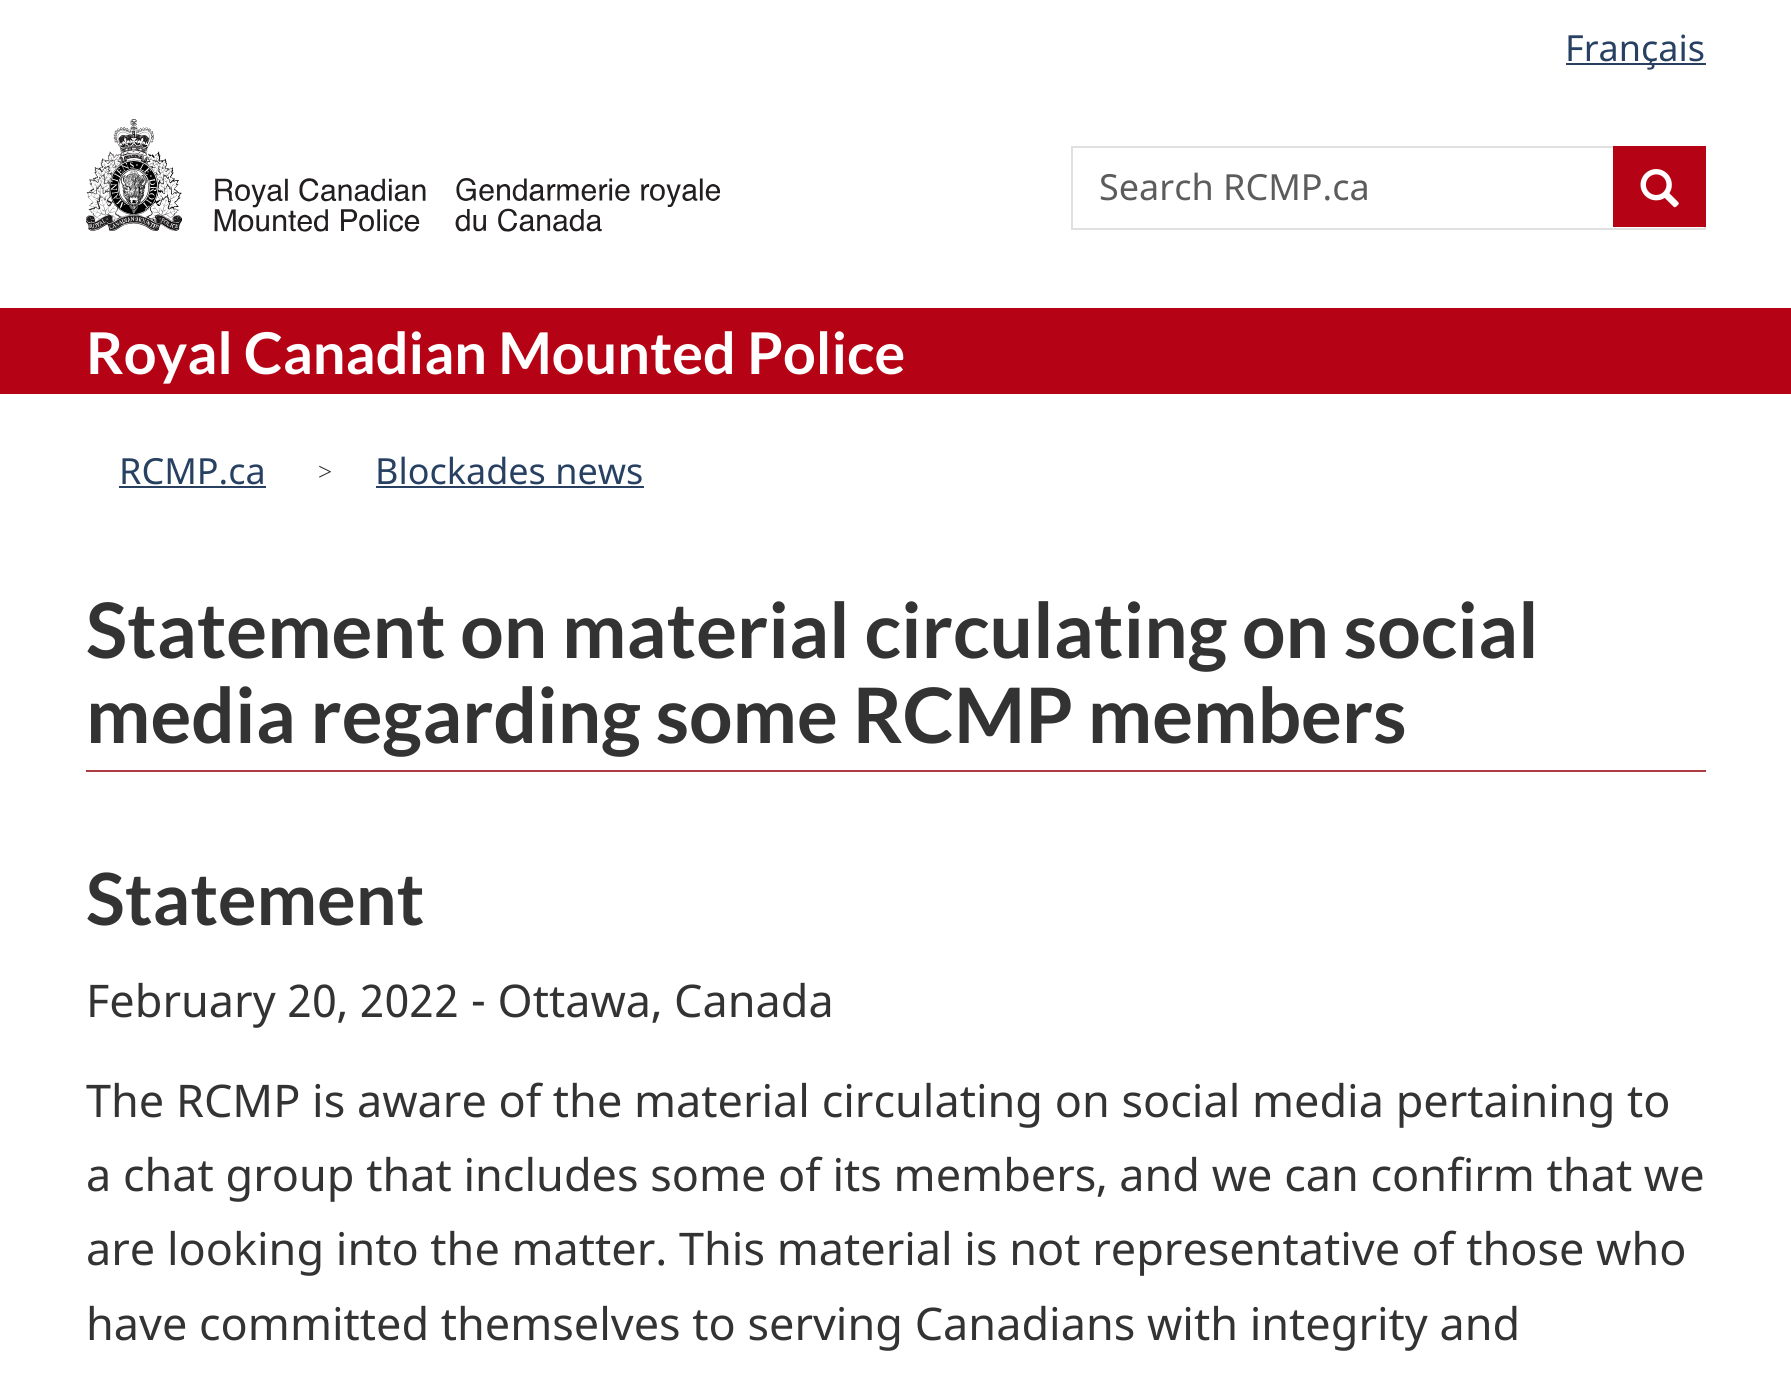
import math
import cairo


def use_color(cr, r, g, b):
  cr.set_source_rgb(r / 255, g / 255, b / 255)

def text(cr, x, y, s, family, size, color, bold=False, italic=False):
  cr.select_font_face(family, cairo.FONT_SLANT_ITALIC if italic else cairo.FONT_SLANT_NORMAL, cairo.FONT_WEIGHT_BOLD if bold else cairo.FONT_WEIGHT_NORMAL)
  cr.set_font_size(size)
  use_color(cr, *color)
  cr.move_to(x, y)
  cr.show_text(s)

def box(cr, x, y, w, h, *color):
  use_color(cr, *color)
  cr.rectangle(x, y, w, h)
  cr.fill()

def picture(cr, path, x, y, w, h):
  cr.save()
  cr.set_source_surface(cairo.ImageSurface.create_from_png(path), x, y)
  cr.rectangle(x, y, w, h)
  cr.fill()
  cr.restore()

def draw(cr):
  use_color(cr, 255, 255, 255)
  cr.paint()
  box(cr, 1566, 63, 140, 2, 40, 65, 98)
  picture(cr, "img_01.png", 86, 119, 634, 113)
  cr.rectangle(1072, 147, 633, 82)
  use_color(cr, 224, 224, 224)
  cr.stroke()
  box(cr, 1613, 146, 93, 81, 181, 3, 21)
  picture(cr, "img_02.png", 1640, 169, 39, 39)
  box(cr, 0, 308, 1791, 86, 181, 3, 21)
  box(cr, 119, 486, 147, 2, 40, 65, 98)
  box(cr, 376, 486, 268, 2, 40, 65, 98)
  box(cr, 86, 770, 1620, 2, 175, 60, 67)
  text(cr, 1565, 61, "Français", "Noto Sans", 36, (40, 65, 98))
  text(cr, 1099, 200, "Search RCMP.ca", "Noto Sans", 36, (92, 92, 92))
  text(cr, 86, 374, "Royal Canadian Mounted Police", "Lato", 57.6, (255, 255, 255), bold=True)
  text(cr, 119, 484, "RCMP.ca", "Noto Sans", 36, (40, 65, 98))
  text(cr, 318, 480, ">", "Liberation Serif", 25, (51, 51, 51))
  text(cr, 375, 484, "Blockades news", "Noto Sans", 36, (40, 65, 98))
  text(cr, 86, 658, "Statement on material circulating on social", "Lato", 76.5, (51, 51, 51), bold=True)
  text(cr, 86, 743, "media regarding some RCMP members", "Lato", 76.5, (51, 51, 51), bold=True)
  text(cr, 86, 925, "Statement", "Lato", 72, (51, 51, 51), bold=True)
  text(cr, 86, 1017, "February 20, 2022 - Ottawa, Canada", "Noto Sans", 45, (51, 51, 51))
  text(cr, 86, 1117, "The RCMP is aware of the material circulating on social media pertaining to", "Noto Sans", 45, (51, 51, 51))
  text(cr, 86, 1191, "a chat group that includes some of its members, and we can confirm that we", "Noto Sans", 45, (51, 51, 51))
  text(cr, 86, 1265, "are looking into the matter. This material is not representative of those who", "Noto Sans", 45, (51, 51, 51))
  text(cr, 86, 1340, "have committed themselves to serving Canadians with integrity and", "Noto Sans", 45, (51, 51, 51))


surface = cairo.ImageSurface(cairo.FORMAT_RGB24, 1791, 1393)
cr = cairo.Context(surface)
options = cairo.FontOptions()
options.set_hint_metrics(cairo.HINT_METRICS_OFF)
options.set_hint_style(cairo.HINT_STYLE_NONE)
cr.set_font_options(options)
cr.set_miter_limit(4)
draw(cr)
surface.write_to_png("out.png")
